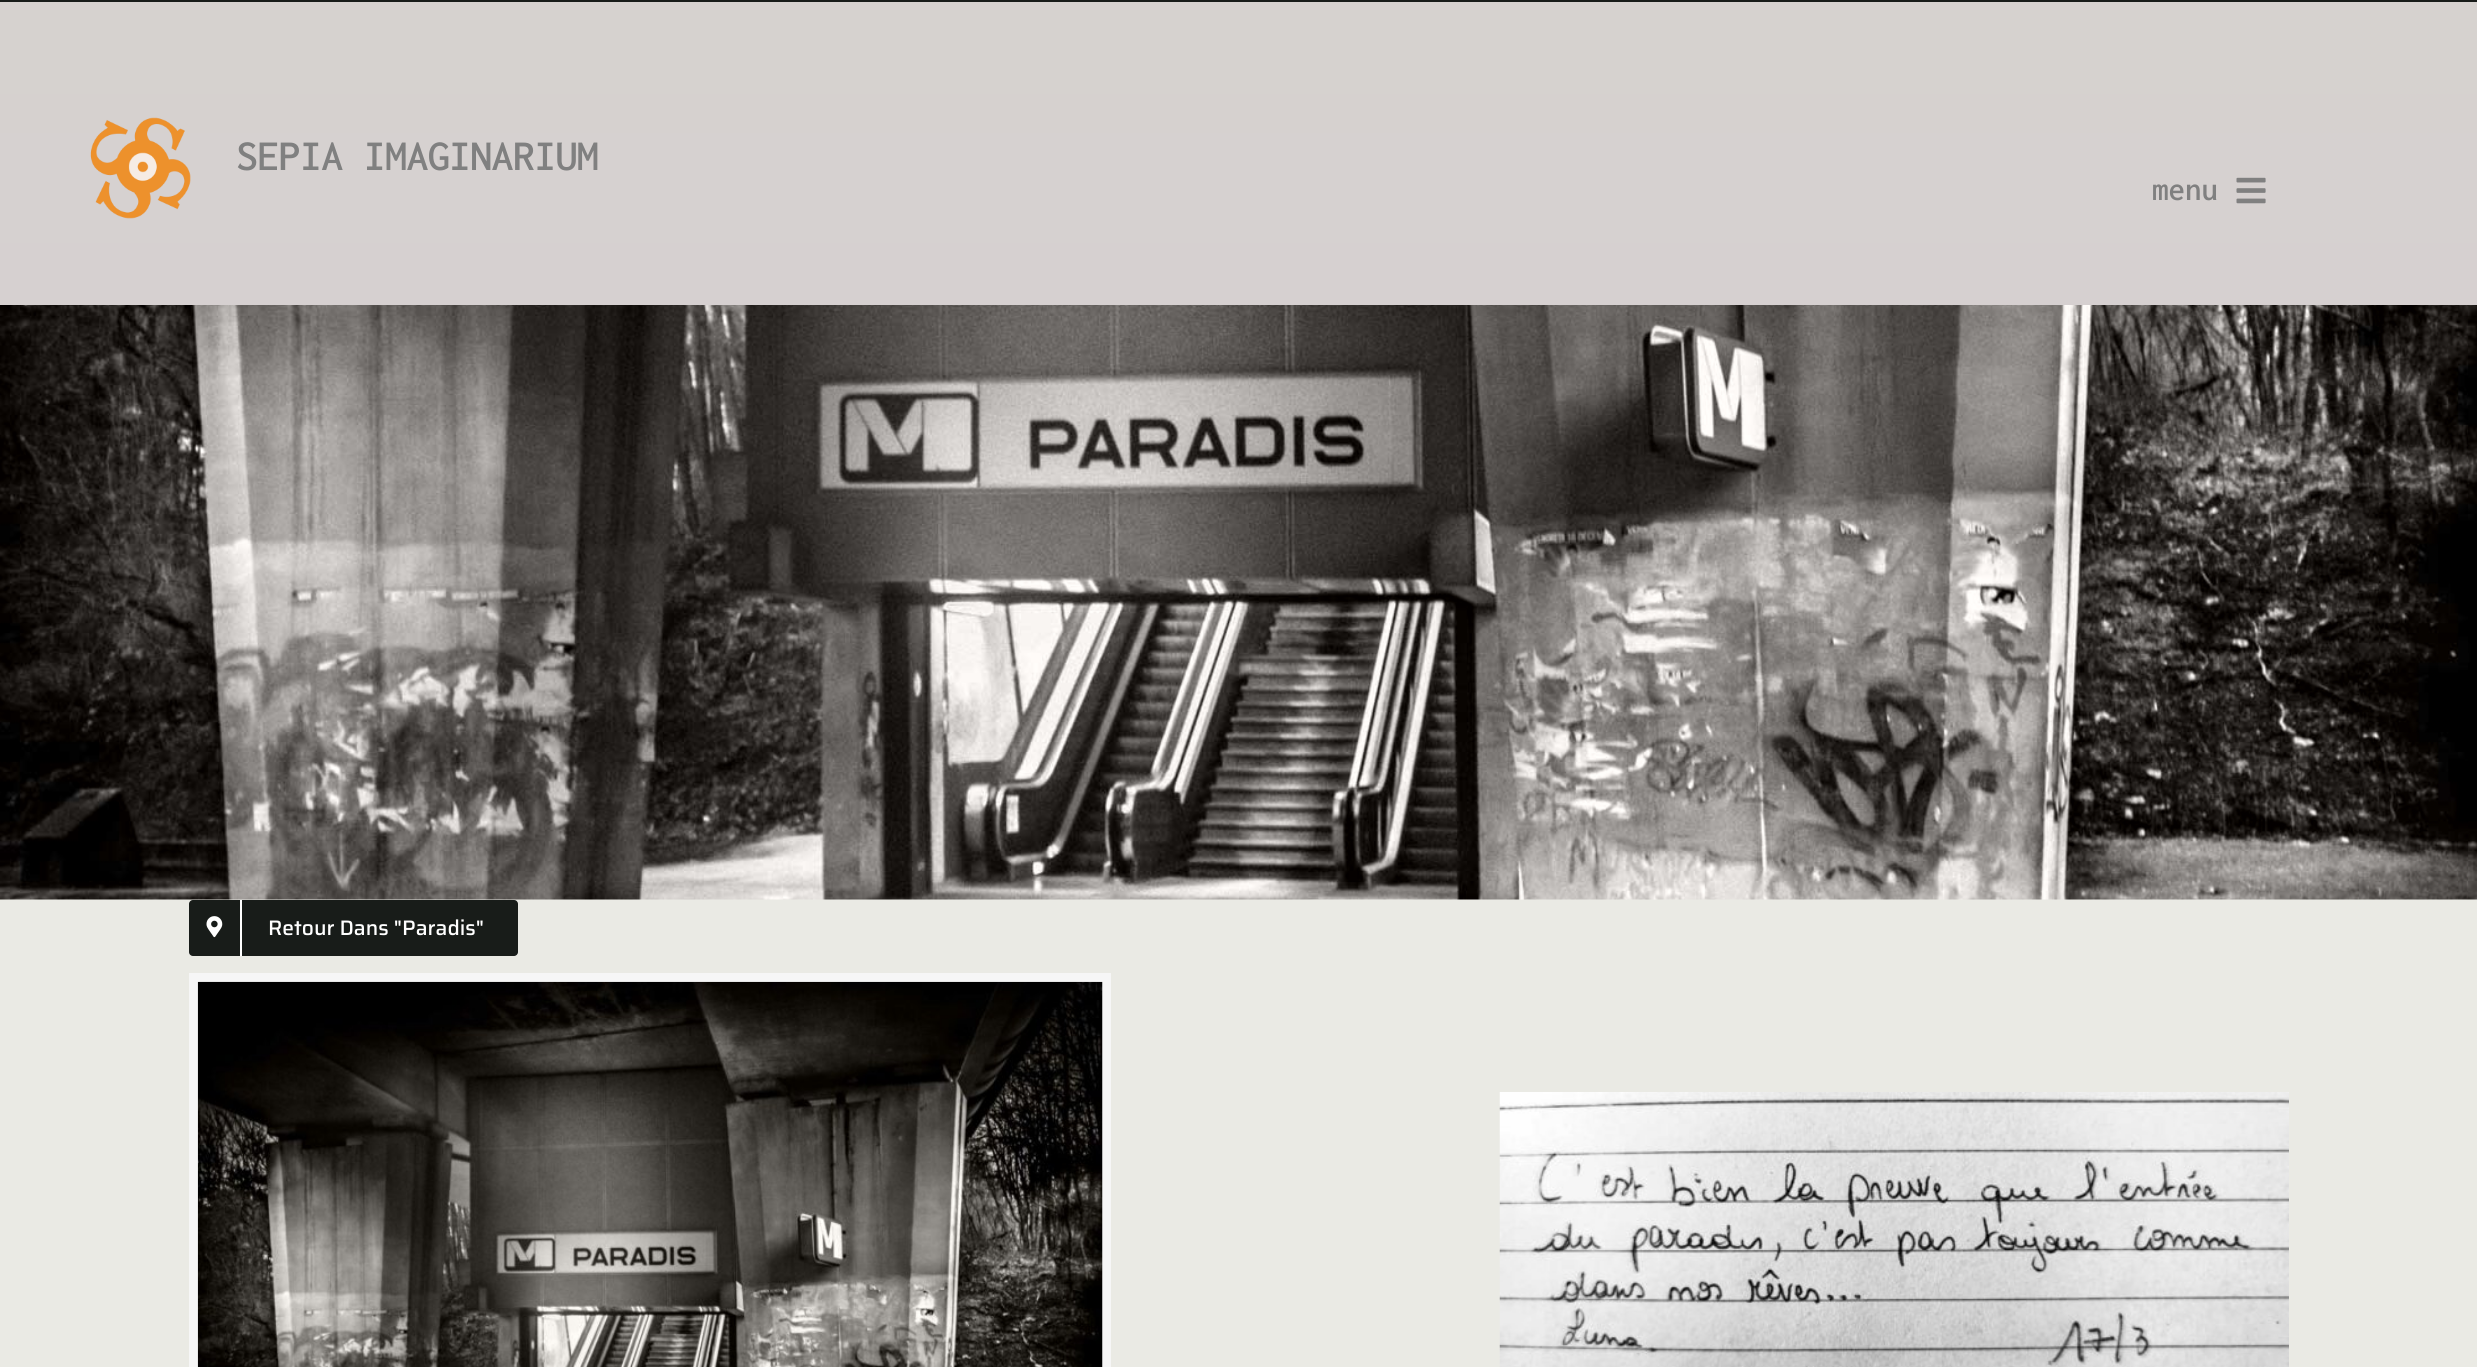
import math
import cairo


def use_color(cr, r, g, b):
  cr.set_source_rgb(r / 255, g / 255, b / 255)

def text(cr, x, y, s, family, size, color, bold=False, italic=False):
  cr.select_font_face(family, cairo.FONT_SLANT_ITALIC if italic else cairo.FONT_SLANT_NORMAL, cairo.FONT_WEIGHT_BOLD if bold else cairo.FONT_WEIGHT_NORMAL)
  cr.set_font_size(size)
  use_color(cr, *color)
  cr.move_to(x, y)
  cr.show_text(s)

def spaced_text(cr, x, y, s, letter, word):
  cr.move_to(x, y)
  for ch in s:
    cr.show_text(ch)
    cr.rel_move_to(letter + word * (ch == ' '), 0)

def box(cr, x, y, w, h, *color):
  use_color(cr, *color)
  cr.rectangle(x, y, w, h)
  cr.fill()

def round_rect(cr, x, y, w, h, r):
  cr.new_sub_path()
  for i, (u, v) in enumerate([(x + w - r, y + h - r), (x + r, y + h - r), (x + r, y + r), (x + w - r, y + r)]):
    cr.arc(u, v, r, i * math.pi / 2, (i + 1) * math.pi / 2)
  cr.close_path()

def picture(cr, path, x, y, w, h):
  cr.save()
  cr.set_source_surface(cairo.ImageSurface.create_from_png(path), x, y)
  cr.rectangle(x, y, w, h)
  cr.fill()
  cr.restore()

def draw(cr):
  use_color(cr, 24, 28, 25)
  cr.paint()
  gradient = cairo.LinearGradient(1239, 1.7, 1239, 305)
  gradient.add_color_stop_rgba(0, 0.839, 0.824, 0.812, 1)
  gradient.add_color_stop_rgba(1, 0.839, 0.816, 0.816, 1)
  cr.set_source(gradient)
  cr.rectangle(0, 2, 2477, 303)
  cr.fill()
  picture(cr, "img_01.png", 90, 117, 101, 102)
  picture(cr, "img_02.png", 2236, 177, 30, 27)
  box(cr, 0, 899, 2477, 468, 234, 234, 228)
  picture(cr, "img_03.png", 0, 305, 2477, 595)
  use_color(cr, 24, 28, 25)
  round_rect(cr, 189, 900, 329, 56, 4)
  cr.fill()
  box(cr, 240, 900, 2, 56, 255, 255, 255)
  picture(cr, "img_04.png", 206, 916, 17, 22)
  cr.rectangle(193.5, 977.5, 913, 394)
  use_color(cr, 246, 246, 246)
  cr.set_line_width(9)
  cr.stroke()
  picture(cr, "img_05.png", 197, 981, 906, 386)
  picture(cr, "img_06.png", 1499, 1092, 790, 275)
  cr.select_font_face("Inconsolata SemiBold")
  cr.set_font_size(44)
  use_color(cr, 128, 128, 128)
  spaced_text(cr, 236, 170, "SEPIA IMAGINARIUM", -0.7, 0)
  text(cr, 2152, 200, "menu", "Inconsolata SemiBold", 33, (128, 128, 128))
  text(cr, 268, 935, "Retour Dans \"Paradis\"", "Saira Medium", 21, (255, 255, 255))


surface = cairo.ImageSurface(cairo.FORMAT_RGB24, 2477, 1367)
cr = cairo.Context(surface)
options = cairo.FontOptions()
options.set_hint_metrics(cairo.HINT_METRICS_OFF)
options.set_hint_style(cairo.HINT_STYLE_NONE)
cr.set_font_options(options)
cr.set_miter_limit(4)
draw(cr)
surface.write_to_png("out.png")
